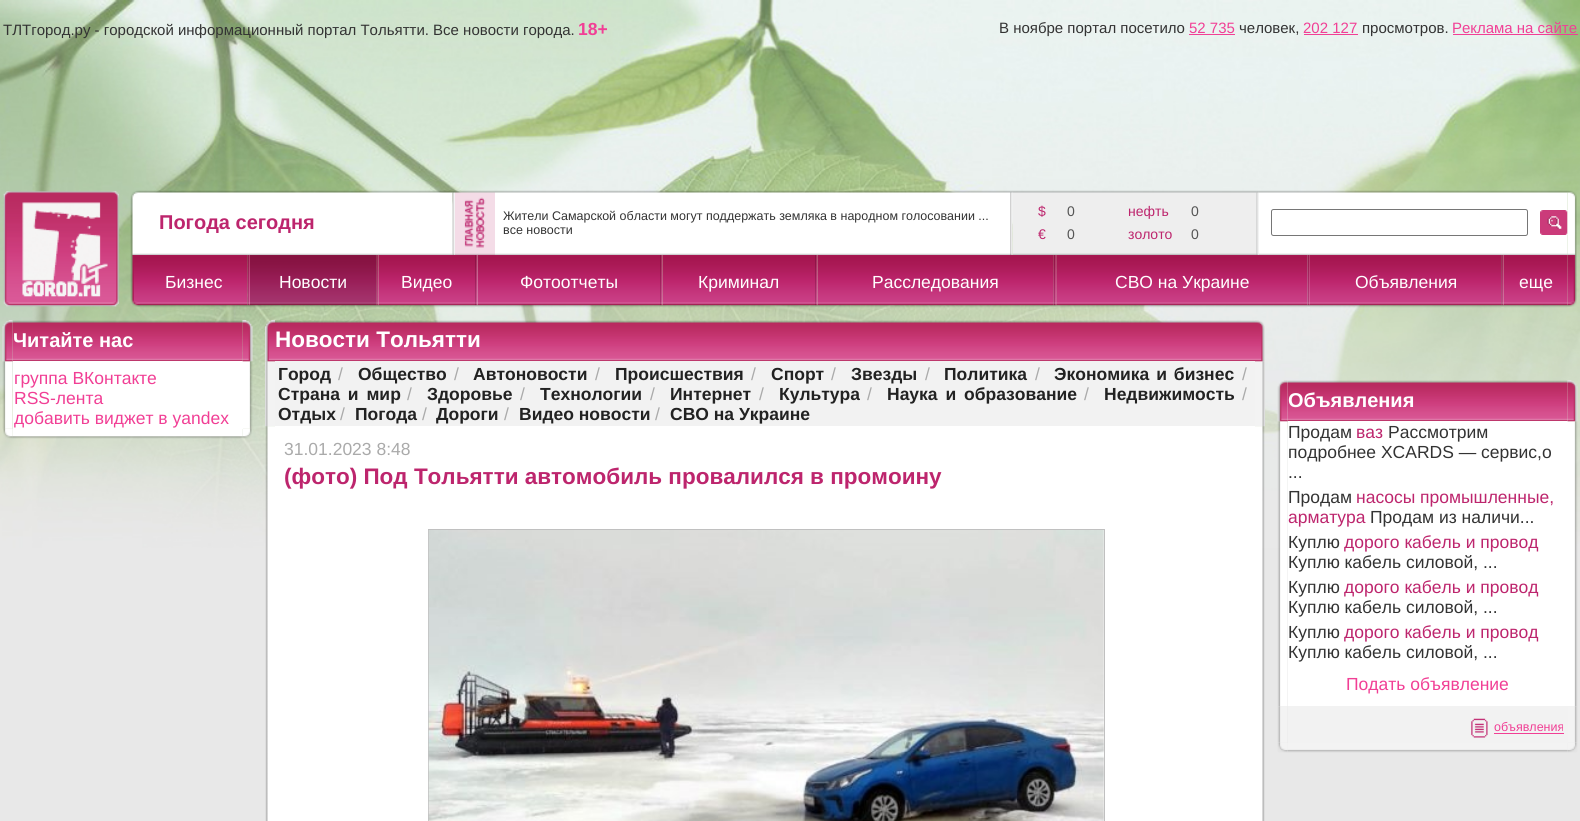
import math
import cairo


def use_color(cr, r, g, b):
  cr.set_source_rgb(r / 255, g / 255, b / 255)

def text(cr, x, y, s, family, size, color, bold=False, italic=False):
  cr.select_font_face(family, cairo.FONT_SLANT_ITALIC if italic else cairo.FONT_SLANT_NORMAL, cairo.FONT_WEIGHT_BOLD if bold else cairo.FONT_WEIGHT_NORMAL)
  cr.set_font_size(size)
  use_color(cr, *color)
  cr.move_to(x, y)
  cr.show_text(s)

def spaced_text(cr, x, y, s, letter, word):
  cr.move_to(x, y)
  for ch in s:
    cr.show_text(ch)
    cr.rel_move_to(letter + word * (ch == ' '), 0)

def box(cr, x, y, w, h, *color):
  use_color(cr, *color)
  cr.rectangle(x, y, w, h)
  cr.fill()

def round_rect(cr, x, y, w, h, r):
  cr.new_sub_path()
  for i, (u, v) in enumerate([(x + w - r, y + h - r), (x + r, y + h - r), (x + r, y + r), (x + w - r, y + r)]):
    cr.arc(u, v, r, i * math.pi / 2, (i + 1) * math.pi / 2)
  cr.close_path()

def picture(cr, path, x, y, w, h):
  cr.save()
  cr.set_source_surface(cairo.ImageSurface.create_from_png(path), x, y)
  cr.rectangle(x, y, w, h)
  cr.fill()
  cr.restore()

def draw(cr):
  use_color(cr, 232, 232, 232)
  cr.paint()
  picture(cr, "img_01.png", 0, 0, 1580, 548)
  box(cr, 1189, 34, 46, 1, 241, 63, 149)
  box(cr, 1304, 34, 54, 1, 241, 63, 149)
  box(cr, 1453, 34, 125, 1, 241, 63, 149)
  picture(cr, "img_02.png", 3, 191, 116, 116)
  picture(cr, "img_03.png", 130, 190, 10, 65)
  picture(cr, "img_04.png", 140, 190, 313, 65)
  picture(cr, "img_05.png", 452, 190, 3, 65)
  picture(cr, "img_06.png", 455, 190, 40, 65)
  picture(cr, "img_07.png", 495, 190, 515, 65)
  picture(cr, "img_09.png", 1012, 190, 245, 65)
  picture(cr, "img_08.png", 1010, 190, 3, 65)
  picture(cr, "img_11.png", 1258, 190, 282, 65)
  picture(cr, "img_10.png", 1256, 190, 3, 65)
  round_rect(cr, 1271.5, 209.5, 256, 26, 2)
  use_color(cr, 118, 118, 118)
  cr.set_line_width(1)
  cr.stroke()
  picture(cr, "img_12.png", 1540, 190, 28, 65)
  picture(cr, "img_13.png", 1540, 210, 28, 25)
  picture(cr, "img_14.png", 1567, 190, 10, 65)
  picture(cr, "img_15.png", 130, 255, 10, 52)
  picture(cr, "img_16.png", 140, 255, 108, 53)
  picture(cr, "img_17.png", 247, 255, 3, 52)
  picture(cr, "img_18.png", 250, 255, 127, 53)
  picture(cr, "img_20.png", 378, 255, 97, 53)
  picture(cr, "img_19.png", 376, 255, 3, 52)
  picture(cr, "img_22.png", 477, 255, 183, 53)
  picture(cr, "img_21.png", 475, 255, 3, 52)
  picture(cr, "img_24.png", 662, 255, 153, 53)
  picture(cr, "img_23.png", 660, 255, 3, 52)
  picture(cr, "img_26.png", 817, 255, 237, 53)
  picture(cr, "img_25.png", 815, 255, 3, 52)
  picture(cr, "img_28.png", 1056, 255, 252, 53)
  picture(cr, "img_27.png", 1053, 255, 4, 52)
  picture(cr, "img_29.png", 1307, 255, 3, 52)
  picture(cr, "img_30.png", 1310, 255, 192, 53)
  picture(cr, "img_32.png", 1503, 255, 65, 53)
  picture(cr, "img_31.png", 1501, 255, 3, 52)
  picture(cr, "img_33.png", 1567, 255, 10, 52)
  picture(cr, "img_35.png", 12, 320, 231, 42)
  picture(cr, "img_37.png", 2, 361, 11, 68)
  picture(cr, "img_34.png", 2, 320, 11, 42)
  box(cr, 13, 361, 230, 68, 255, 255, 255)
  picture(cr, "img_38.png", 243, 361, 10, 68)
  picture(cr, "img_36.png", 242, 320, 11, 42)
  picture(cr, "img_39.png", 3, 428, 10, 11)
  picture(cr, "img_40.png", 12, 428, 231, 11)
  picture(cr, "img_41.png", 242, 428, 10, 11)
  picture(cr, "img_42.png", 265, 320, 10, 42)
  picture(cr, "img_47.png", 265, 361, 10, 66)
  picture(cr, "img_43.png", 265, 320, 10, 42)
  picture(cr, "img_44.png", 275, 320, 980, 41)
  picture(cr, "img_45.png", 1255, 320, 10, 42)
  picture(cr, "img_48.png", 1255, 361, 10, 66)
  picture(cr, "img_46.png", 1255, 320, 10, 42)
  box(cr, 275, 361, 980, 65, 242, 242, 242)
  picture(cr, "img_49.png", 265, 426, 10, 395)
  box(cr, 275, 426, 980, 395, 255, 255, 255)
  cr.rectangle(428.5, 529.5, 676, 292)
  use_color(cr, 192, 192, 192)
  cr.stroke()
  picture(cr, "img_50.png", 428, 530, 676, 291)
  picture(cr, "img_51.png", 1255, 426, 10, 395)
  picture(cr, "img_53.png", 1287, 380, 281, 42)
  picture(cr, "img_55.png", 1277, 421, 11, 286)
  picture(cr, "img_52.png", 1277, 380, 11, 42)
  box(cr, 1288, 421, 280, 285, 255, 255, 255)
  picture(cr, "img_56.png", 1568, 421, 10, 286)
  picture(cr, "img_54.png", 1567, 380, 11, 42)
  picture(cr, "img_57.png", 1277, 706, 11, 37)
  box(cr, 1288, 706, 280, 37, 242, 242, 242)
  picture(cr, "img_58.png", 1471, 718, 17, 20)
  box(cr, 1494, 733, 70, 1, 241, 63, 149)
  picture(cr, "img_59.png", 1568, 706, 10, 37)
  picture(cr, "img_60.png", 1277, 742, 11, 11)
  picture(cr, "img_61.png", 1287, 743, 281, 10)
  picture(cr, "img_62.png", 1567, 742, 11, 11)
  text(cr, 3, 35, "ТЛТгород.ру - городской информационный портал Тольятти. Все новости города.", "Liberation Sans", 15, (51, 51, 51))
  text(cr, 578, 35, "18+", "Liberation Sans", 17.5, (241, 63, 149), bold=True)
  text(cr, 999, 33, "В ноябре портал посетило", "Liberation Sans", 15, (51, 51, 51))
  text(cr, 1189, 33, "52 735", "Liberation Sans", 15, (241, 63, 149))
  text(cr, 1239, 33, "человек,", "Liberation Sans", 15, (51, 51, 51))
  text(cr, 1303, 33, "202 127", "Liberation Sans", 15, (241, 63, 149))
  text(cr, 1362, 33, "просмотров.", "Liberation Sans", 15, (51, 51, 51))
  text(cr, 1452, 33, "Реклама на сайте", "Liberation Sans", 15, (241, 63, 149))
  text(cr, 159, 229, "Погода сегодня", "Liberation Sans", 20, (189, 37, 109), bold=True)
  text(cr, 503, 220, "Жители Самарской области могут поддержать земляка в народном голосовании ...", "Liberation Sans", 12.5, (51, 51, 51))
  text(cr, 503, 234, "все новости", "Liberation Sans", 12.5, (51, 51, 51))
  text(cr, 1038, 216, "$", "Liberation Sans", 14, (189, 37, 109))
  text(cr, 1067, 216, "0", "Liberation Sans", 14, (85, 85, 85))
  text(cr, 1128, 216, "нефть", "Liberation Sans", 14, (189, 37, 109))
  text(cr, 1191, 216, "0", "Liberation Sans", 14, (85, 85, 85))
  text(cr, 1038, 239, "€", "Liberation Sans", 14, (189, 37, 109))
  text(cr, 1067, 239, "0", "Liberation Sans", 14, (85, 85, 85))
  text(cr, 1128, 239, "золото", "Liberation Sans", 14, (189, 37, 109))
  text(cr, 1191, 239, "0", "Liberation Sans", 14, (85, 85, 85))
  text(cr, 165, 288, "Бизнес", "Liberation Sans", 17.5, (255, 255, 255))
  text(cr, 279, 288, "Новости", "Liberation Sans", 17.5, (255, 255, 255))
  text(cr, 401, 288, "Видео", "Liberation Sans", 17.5, (255, 255, 255))
  text(cr, 520, 288, "Фотоотчеты", "Liberation Sans", 17.5, (255, 255, 255))
  text(cr, 698, 288, "Криминал", "Liberation Sans", 17.5, (255, 255, 255))
  text(cr, 872, 288, "Расследования", "Liberation Sans", 17.5, (255, 255, 255))
  text(cr, 1115, 288, "СВО на Украине", "Liberation Sans", 17.5, (255, 255, 255))
  text(cr, 1355, 288, "Объявления", "Liberation Sans", 17.5, (255, 255, 255))
  text(cr, 1519, 288, "еще", "Liberation Sans", 17.5, (255, 255, 255))
  text(cr, 13, 347, "Читайте нас", "Liberation Sans", 20, (255, 255, 255), bold=True)
  text(cr, 14, 384, "группа ВКонтакте", "Liberation Sans", 17.5, (241, 63, 149))
  text(cr, 14, 404, "RSS-лента", "Liberation Sans", 17.5, (241, 63, 149))
  text(cr, 14, 424, "добавить виджет в yandex", "Liberation Sans", 17.5, (241, 63, 149))
  text(cr, 275, 347, "Новости Тольятти", "Liberation Sans", 22.5, (255, 255, 255), bold=True)
  text(cr, 278, 380, "Город", "Liberation Sans", 17.5, (34, 34, 34), bold=True)
  text(cr, 338, 380, "/", "Liberation Sans", 17.5, (170, 170, 170))
  text(cr, 358, 380, "Общество", "Liberation Sans", 17.5, (34, 34, 34), bold=True)
  text(cr, 454, 380, "/", "Liberation Sans", 17.5, (170, 170, 170))
  text(cr, 473, 380, "Автоновости", "Liberation Sans", 17.5, (34, 34, 34), bold=True)
  text(cr, 595, 380, "/", "Liberation Sans", 17.5, (170, 170, 170))
  text(cr, 615, 380, "Происшествия", "Liberation Sans", 17.5, (34, 34, 34), bold=True)
  text(cr, 751, 380, "/", "Liberation Sans", 17.5, (170, 170, 170))
  text(cr, 771, 380, "Спорт", "Liberation Sans", 17.5, (34, 34, 34), bold=True)
  text(cr, 831, 380, "/", "Liberation Sans", 17.5, (170, 170, 170))
  text(cr, 851, 380, "Звезды", "Liberation Sans", 17.5, (34, 34, 34), bold=True)
  text(cr, 925, 380, "/", "Liberation Sans", 17.5, (170, 170, 170))
  text(cr, 944, 380, "Политика", "Liberation Sans", 17.5, (34, 34, 34), bold=True)
  text(cr, 1035, 380, "/", "Liberation Sans", 17.5, (170, 170, 170))
  cr.select_font_face("Liberation Sans", cairo.FONT_SLANT_NORMAL, cairo.FONT_WEIGHT_BOLD)
  use_color(cr, 34, 34, 34)
  spaced_text(cr, 1054, 380, "Экономика и бизнес", 0, 2)
  text(cr, 1242, 380, "/", "Liberation Sans", 17.5, (170, 170, 170))
  cr.select_font_face("Liberation Sans", cairo.FONT_SLANT_NORMAL, cairo.FONT_WEIGHT_BOLD)
  use_color(cr, 34, 34, 34)
  spaced_text(cr, 278, 400, "Страна и мир", 0, 3)
  text(cr, 407, 400, "/", "Liberation Sans", 17.5, (170, 170, 170))
  text(cr, 427, 400, "Здоровье", "Liberation Sans", 17.5, (34, 34, 34), bold=True)
  text(cr, 520, 400, "/", "Liberation Sans", 17.5, (170, 170, 170))
  text(cr, 540, 400, "Технологии", "Liberation Sans", 17.5, (34, 34, 34), bold=True)
  text(cr, 650, 400, "/", "Liberation Sans", 17.5, (170, 170, 170))
  text(cr, 670, 400, "Интернет", "Liberation Sans", 17.5, (34, 34, 34), bold=True)
  text(cr, 759, 400, "/", "Liberation Sans", 17.5, (170, 170, 170))
  text(cr, 779, 400, "Культура", "Liberation Sans", 17.5, (34, 34, 34), bold=True)
  text(cr, 867, 400, "/", "Liberation Sans", 17.5, (170, 170, 170))
  cr.select_font_face("Liberation Sans", cairo.FONT_SLANT_NORMAL, cairo.FONT_WEIGHT_BOLD)
  use_color(cr, 34, 34, 34)
  spaced_text(cr, 887, 400, "Наука и образование", 0, 3)
  text(cr, 1084, 400, "/", "Liberation Sans", 17.5, (170, 170, 170))
  text(cr, 1104, 400, "Недвижимость", "Liberation Sans", 17.5, (34, 34, 34), bold=True)
  text(cr, 1242, 400, "/", "Liberation Sans", 17.5, (170, 170, 170))
  text(cr, 278, 420, "Отдых", "Liberation Sans", 17.5, (34, 34, 34), bold=True)
  text(cr, 340, 420, "/", "Liberation Sans", 17.5, (170, 170, 170))
  text(cr, 355, 420, "Погода", "Liberation Sans", 17.5, (34, 34, 34), bold=True)
  text(cr, 422, 420, "/", "Liberation Sans", 17.5, (170, 170, 170))
  text(cr, 436, 420, "Дороги", "Liberation Sans", 17.5, (34, 34, 34), bold=True)
  text(cr, 504, 420, "/", "Liberation Sans", 17.5, (170, 170, 170))
  text(cr, 519, 420, "Видео новости", "Liberation Sans", 17.5, (34, 34, 34), bold=True)
  text(cr, 655, 420, "/", "Liberation Sans", 17.5, (170, 170, 170))
  text(cr, 670, 420, "СВО на Украине", "Liberation Sans", 17.5, (34, 34, 34), bold=True)
  text(cr, 284, 455, "31.01.2023 8:48", "Liberation Sans", 17.5, (170, 170, 170))
  text(cr, 284, 484, "(фото) Под Тольятти автомобиль провалился в промоину", "Liberation Sans", 22.5, (189, 37, 109), bold=True)
  text(cr, 1288, 407, "Объявления", "Liberation Sans", 20, (255, 255, 255), bold=True)
  text(cr, 1288, 438, "Продам", "Liberation Sans", 17.5, (51, 51, 51))
  text(cr, 1356, 438, "ваз", "Liberation Sans", 17.5, (189, 37, 109))
  text(cr, 1388, 438, "Рассмотрим", "Liberation Sans", 17.5, (51, 51, 51))
  text(cr, 1288, 458, "подробнее XCARDS — сервис,о", "Liberation Sans", 17.5, (51, 51, 51))
  text(cr, 1288, 478, "...", "Liberation Sans", 17.5, (51, 51, 51))
  text(cr, 1288, 503, "Продам", "Liberation Sans", 17.5, (51, 51, 51))
  text(cr, 1356, 503, "насосы промышленные,", "Liberation Sans", 17.5, (189, 37, 109))
  text(cr, 1288, 523, "арматура", "Liberation Sans", 17.5, (189, 37, 109))
  text(cr, 1370, 523, "Продам из наличи...", "Liberation Sans", 17.5, (51, 51, 51))
  text(cr, 1288, 548, "Куплю", "Liberation Sans", 17.5, (51, 51, 51))
  text(cr, 1344, 548, "дорого кабель и провод", "Liberation Sans", 17.5, (189, 37, 109))
  text(cr, 1288, 568, "Куплю кабель силовой, ...", "Liberation Sans", 17.5, (51, 51, 51))
  text(cr, 1288, 593, "Куплю", "Liberation Sans", 17.5, (51, 51, 51))
  text(cr, 1344, 593, "дорого кабель и провод", "Liberation Sans", 17.5, (189, 37, 109))
  text(cr, 1288, 613, "Куплю кабель силовой, ...", "Liberation Sans", 17.5, (51, 51, 51))
  text(cr, 1288, 638, "Куплю", "Liberation Sans", 17.5, (51, 51, 51))
  text(cr, 1344, 638, "дорого кабель и провод", "Liberation Sans", 17.5, (189, 37, 109))
  text(cr, 1288, 658, "Куплю кабель силовой, ...", "Liberation Sans", 17.5, (51, 51, 51))
  text(cr, 1346, 690, "Подать объявление", "Liberation Sans", 17.5, (241, 63, 149))
  text(cr, 1494, 731, "объявления", "Liberation Sans", 12.5, (241, 63, 149))


surface = cairo.ImageSurface(cairo.FORMAT_RGB24, 1580, 821)
cr = cairo.Context(surface)
options = cairo.FontOptions()
options.set_hint_metrics(cairo.HINT_METRICS_OFF)
options.set_hint_style(cairo.HINT_STYLE_NONE)
cr.set_font_options(options)
cr.set_miter_limit(4)
draw(cr)
surface.write_to_png("out.png")
